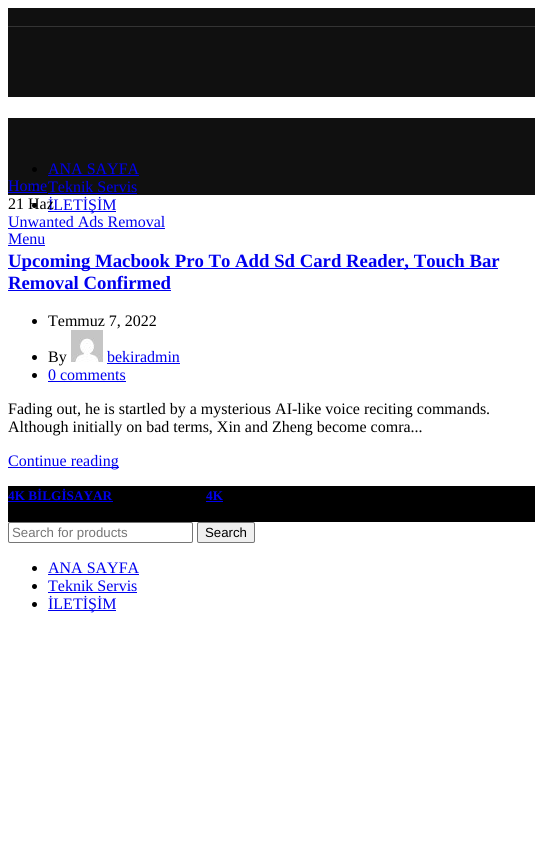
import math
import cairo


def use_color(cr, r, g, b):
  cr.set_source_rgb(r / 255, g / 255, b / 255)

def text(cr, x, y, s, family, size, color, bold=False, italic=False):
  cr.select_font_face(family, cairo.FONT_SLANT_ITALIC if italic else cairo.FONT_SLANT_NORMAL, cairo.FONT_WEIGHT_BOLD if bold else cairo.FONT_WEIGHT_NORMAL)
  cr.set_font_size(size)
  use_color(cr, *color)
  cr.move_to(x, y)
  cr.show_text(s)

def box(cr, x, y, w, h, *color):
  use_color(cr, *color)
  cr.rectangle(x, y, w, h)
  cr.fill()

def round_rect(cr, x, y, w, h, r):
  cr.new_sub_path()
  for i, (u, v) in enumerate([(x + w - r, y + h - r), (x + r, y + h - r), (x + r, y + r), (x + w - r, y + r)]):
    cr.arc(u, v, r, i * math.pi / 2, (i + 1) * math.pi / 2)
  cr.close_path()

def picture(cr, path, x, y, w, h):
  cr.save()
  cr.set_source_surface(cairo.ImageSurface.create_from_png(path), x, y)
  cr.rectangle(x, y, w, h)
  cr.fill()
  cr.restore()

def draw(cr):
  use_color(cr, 255, 255, 255)
  cr.paint()
  box(cr, 8, 8, 527, 18, 16, 16, 16)
  box(cr, 8, 26, 527, 1, 52, 52, 52)
  box(cr, 8, 27, 527, 70, 16, 16, 16)
  box(cr, 8, 118, 527, 77, 16, 16, 16)
  use_color(cr, 0, 0, 0)
  cr.arc(34.5, 169.5, 2.5, 0, 2 * math.pi)
  cr.fill()
  box(cr, 48, 175, 91, 1, 0, 0, 238)
  use_color(cr, 0, 0, 0)
  cr.arc(34.5, 187.5, 2.5, 0, 2 * math.pi)
  cr.fill()
  box(cr, 48, 193, 89, 1, 0, 0, 238)
  use_color(cr, 0, 0, 0)
  cr.arc(34.5, 205.5, 2.5, 0, 2 * math.pi)
  cr.fill()
  box(cr, 48, 211, 68, 1, 0, 0, 238)
  box(cr, 8, 245, 37, 1, 0, 0, 238)
  box(cr, 8, 192, 39, 1, 0, 0, 238)
  box(cr, 8, 228, 157, 1, 0, 0, 238)
  box(cr, 8, 268, 490, 1, 0, 0, 238)
  box(cr, 8, 290, 163, 1, 0, 0, 238)
  use_color(cr, 0, 0, 0)
  cr.arc(34.5, 321.5, 2.5, 0, 2 * math.pi)
  cr.fill()
  cr.arc(34.5, 357.5, 2.5, 0, 2 * math.pi)
  cr.fill()
  picture(cr, "img_01.png", 71, 330, 32, 32)
  box(cr, 107, 363, 73, 1, 0, 0, 238)
  use_color(cr, 0, 0, 0)
  cr.arc(34.5, 375.5, 2.5, 0, 2 * math.pi)
  cr.fill()
  box(cr, 48, 381, 78, 1, 0, 0, 238)
  box(cr, 8, 467, 111, 1, 0, 0, 238)
  box(cr, 8, 486, 527, 36, 0, 0, 0)
  box(cr, 8, 501, 105, 1, 0, 0, 238)
  box(cr, 206, 501, 17, 1, 0, 0, 238)
  round_rect(cr, 8.5, 522.5, 184, 20, 1.5)
  use_color(cr, 118, 118, 118)
  cr.set_line_width(1)
  cr.stroke()
  use_color(cr, 239, 239, 239)
  round_rect(cr, 197.5, 522.5, 57, 20, 1.5)
  cr.fill_preserve()
  use_color(cr, 118, 118, 118)
  cr.stroke()
  use_color(cr, 0, 0, 0)
  cr.arc(34.5, 568.5, 2.5, 0, 2 * math.pi)
  cr.fill()
  box(cr, 48, 574, 91, 1, 0, 0, 238)
  use_color(cr, 0, 0, 0)
  cr.arc(34.5, 586.5, 2.5, 0, 2 * math.pi)
  cr.fill()
  box(cr, 48, 592, 89, 1, 0, 0, 238)
  use_color(cr, 0, 0, 0)
  cr.arc(34.5, 604.5, 2.5, 0, 2 * math.pi)
  cr.fill()
  box(cr, 48, 610, 68, 1, 0, 0, 238)
  text(cr, 48, 174, "ANA SAYFA", "Liberation Serif", 16, (0, 0, 238))
  text(cr, 48, 192, "Teknik Servis", "Liberation Serif", 16, (0, 0, 238))
  text(cr, 48, 210, "İLETİŞİM", "Liberation Serif", 16, (0, 0, 238))
  text(cr, 8, 244, "Menu", "Liberation Serif", 16, (0, 0, 238))
  text(cr, 8, 191, "Home", "Liberation Serif", 16, (0, 0, 238))
  text(cr, 8, 209, "21 Haz", "Liberation Serif", 16, (0, 0, 0))
  text(cr, 8, 227, "Unwanted Ads Removal", "Liberation Serif", 16, (0, 0, 238))
  text(cr, 8, 267, "Upcoming Macbook Pro To Add Sd Card Reader, Touch Bar", "Liberation Serif", 18.75, (0, 0, 238), bold=True)
  text(cr, 8, 289, "Removal Confirmed", "Liberation Serif", 18.75, (0, 0, 238), bold=True)
  text(cr, 48, 326, "Temmuz 7, 2022", "Liberation Serif", 16, (0, 0, 0))
  text(cr, 48, 362, "By", "Liberation Serif", 16, (0, 0, 0))
  text(cr, 107, 362, "bekiradmin", "Liberation Serif", 16, (0, 0, 238))
  text(cr, 48, 380, "0 comments", "Liberation Serif", 16, (0, 0, 238))
  text(cr, 8, 414, "Fading out, he is startled by a mysterious AI-like voice reciting commands.", "Liberation Serif", 16, (0, 0, 0))
  text(cr, 8, 432, "Although initially on bad terms, Xin and Zheng become comra...", "Liberation Serif", 16, (0, 0, 0))
  text(cr, 8, 466, "Continue reading", "Liberation Serif", 16, (0, 0, 238))
  text(cr, 8, 500, "4K BİLGİSAYAR", "Liberation Serif", 13.25, (0, 0, 238), bold=True)
  text(cr, 206, 500, "4K", "Liberation Serif", 13.25, (0, 0, 238), bold=True)
  text(cr, 12, 537, "Search for products", "Liberation Sans", 13.25, (117, 117, 117))
  text(cr, 205, 537, "Search", "Liberation Sans", 13.25, (0, 0, 0))
  text(cr, 48, 573, "ANA SAYFA", "Liberation Serif", 16, (0, 0, 238))
  text(cr, 48, 591, "Teknik Servis", "Liberation Serif", 16, (0, 0, 238))
  text(cr, 48, 609, "İLETİŞİM", "Liberation Serif", 16, (0, 0, 238))


surface = cairo.ImageSurface(cairo.FORMAT_RGB24, 543, 856)
cr = cairo.Context(surface)
options = cairo.FontOptions()
options.set_hint_metrics(cairo.HINT_METRICS_OFF)
options.set_hint_style(cairo.HINT_STYLE_NONE)
cr.set_font_options(options)
cr.set_miter_limit(4)
draw(cr)
surface.write_to_png("out.png")
